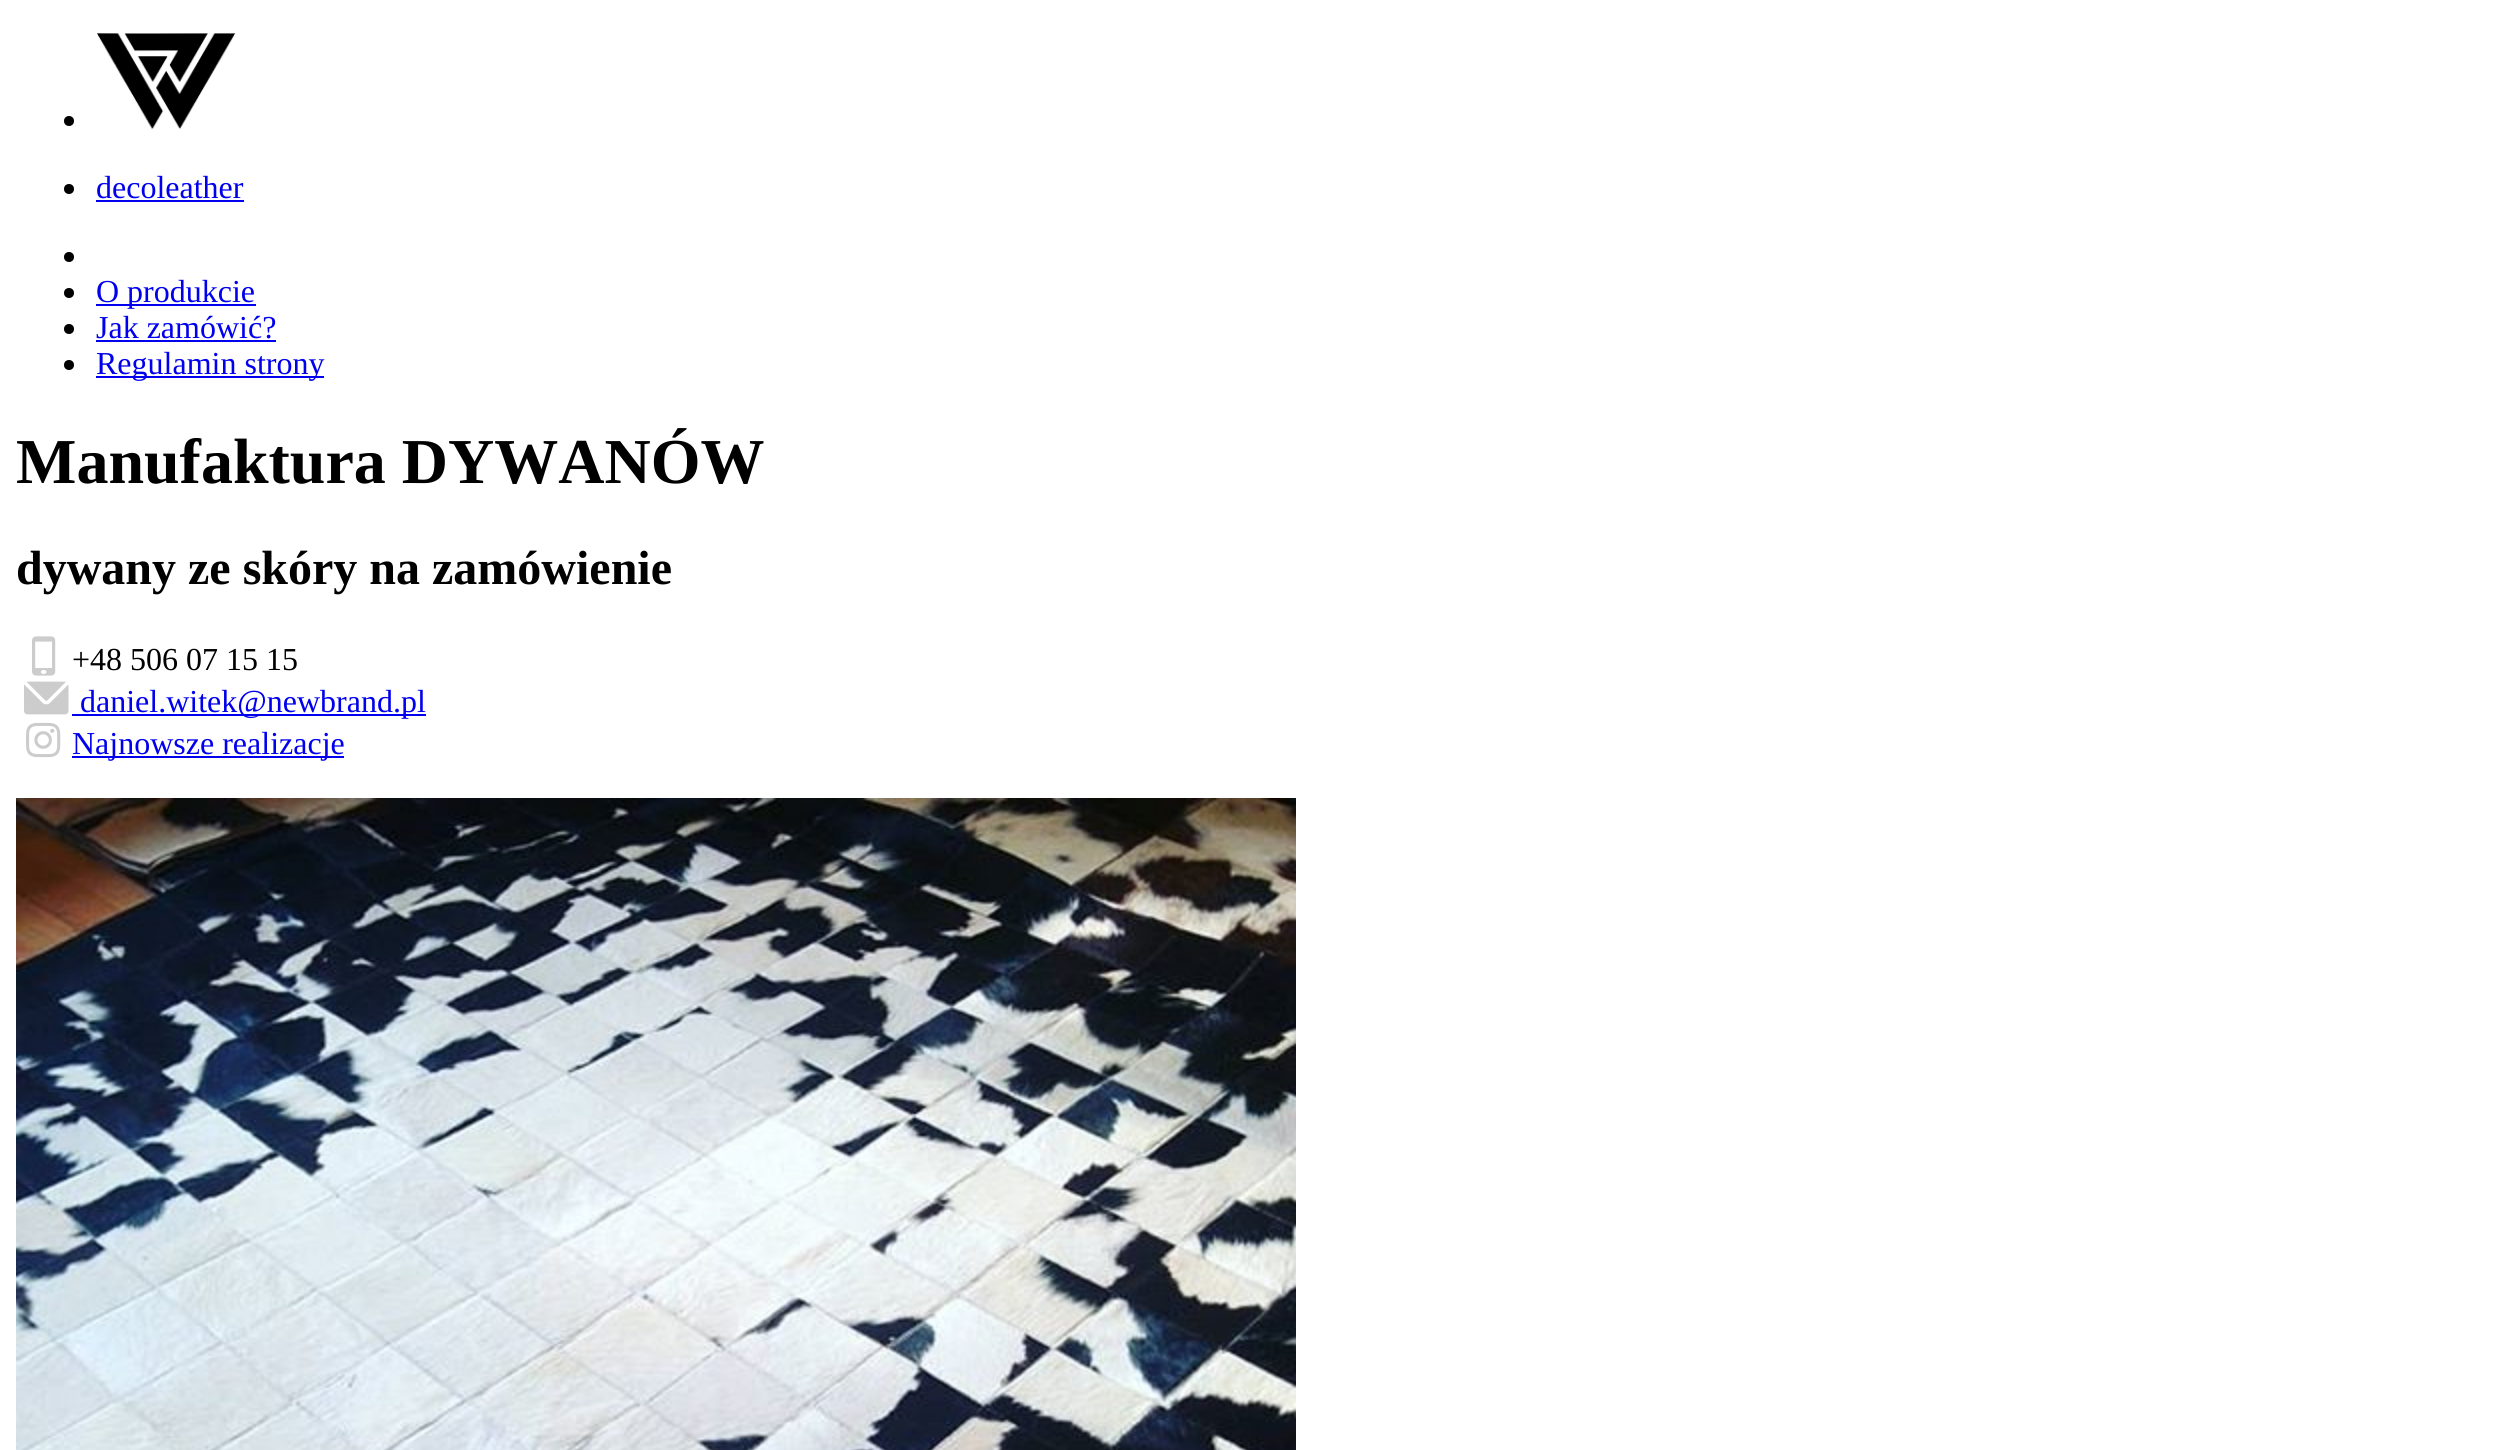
import math
import cairo


def use_color(cr, r, g, b):
  cr.set_source_rgb(r / 255, g / 255, b / 255)

def text(cr, x, y, s, family, size, color, bold=False, italic=False):
  cr.select_font_face(family, cairo.FONT_SLANT_ITALIC if italic else cairo.FONT_SLANT_NORMAL, cairo.FONT_WEIGHT_BOLD if bold else cairo.FONT_WEIGHT_NORMAL)
  cr.set_font_size(size)
  use_color(cr, *color)
  cr.move_to(x, y)
  cr.show_text(s)

def box(cr, x, y, w, h, *color):
  use_color(cr, *color)
  cr.rectangle(x, y, w, h)
  cr.fill()

def picture(cr, path, x, y, w, h):
  cr.save()
  cr.set_source_surface(cairo.ImageSurface.create_from_png(path), x, y)
  cr.rectangle(x, y, w, h)
  cr.fill()
  cr.restore()

def draw(cr):
  use_color(cr, 255, 255, 255)
  cr.paint()
  use_color(cr, 0, 0, 0)
  cr.arc(69, 121, 5, 0, 2 * math.pi)
  cr.fill()
  picture(cr, "img_01.png", 97, 33, 139, 97)
  cr.arc(69, 189, 5, 0, 2 * math.pi)
  cr.fill()
  box(cr, 96, 200, 148, 2, 0, 0, 238)
  use_color(cr, 0, 0, 0)
  cr.arc(69, 257, 5, 0, 2 * math.pi)
  cr.fill()
  cr.arc(69, 293, 5, 0, 2 * math.pi)
  cr.fill()
  box(cr, 96, 304, 160, 2, 0, 0, 238)
  use_color(cr, 0, 0, 0)
  cr.arc(69, 329, 5, 0, 2 * math.pi)
  cr.fill()
  box(cr, 96, 340, 180, 2, 0, 0, 238)
  use_color(cr, 0, 0, 0)
  cr.arc(69, 365, 5, 0, 2 * math.pi)
  cr.fill()
  box(cr, 96, 376, 228, 2, 0, 0, 238)
  picture(cr, "img_02.png", 32, 636, 24, 40)
  picture(cr, "img_03.png", 24, 681, 45, 34)
  box(cr, 72, 714, 354, 2, 0, 0, 238)
  picture(cr, "img_04.png", 26, 722, 35, 36)
  box(cr, 72, 756, 272, 2, 0, 0, 238)
  picture(cr, "img_05.png", 16, 798, 1280, 652)
  text(cr, 96, 198, "decoleather", "Liberation Serif", 32, (0, 0, 238))
  text(cr, 96, 302, "O produkcie", "Liberation Serif", 32, (0, 0, 238))
  text(cr, 96, 338, "Jak zamówić?", "Liberation Serif", 32, (0, 0, 238))
  text(cr, 96, 374, "Regulamin strony", "Liberation Serif", 32, (0, 0, 238))
  text(cr, 16, 483, "Manufaktura DYWANÓW", "Liberation Serif", 64, (0, 0, 0), bold=True)
  text(cr, 16, 584, "dywany ze skóry na zamówienie", "Liberation Serif", 48, (0, 0, 0), bold=True)
  text(cr, 72, 670, "+48 506 07 15 15", "Liberation Serif", 32, (0, 0, 0))
  text(cr, 80, 712, "daniel.witek@newbrand.pl", "Liberation Serif", 32, (0, 0, 238))
  text(cr, 72, 754, "Najnowsze realizacje", "Liberation Serif", 32, (0, 0, 238))


surface = cairo.ImageSurface(cairo.FORMAT_RGB24, 2509, 1450)
cr = cairo.Context(surface)
options = cairo.FontOptions()
options.set_hint_metrics(cairo.HINT_METRICS_OFF)
options.set_hint_style(cairo.HINT_STYLE_NONE)
cr.set_font_options(options)
cr.set_miter_limit(4)
draw(cr)
surface.write_to_png("out.png")
